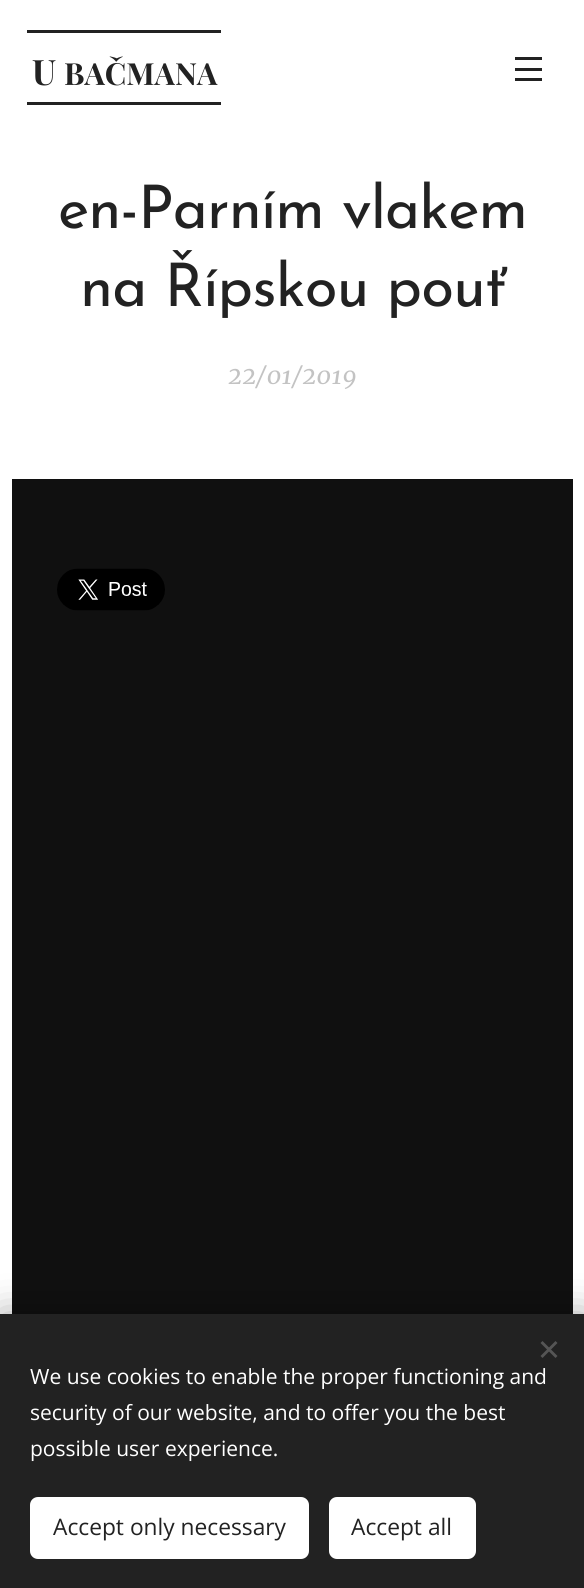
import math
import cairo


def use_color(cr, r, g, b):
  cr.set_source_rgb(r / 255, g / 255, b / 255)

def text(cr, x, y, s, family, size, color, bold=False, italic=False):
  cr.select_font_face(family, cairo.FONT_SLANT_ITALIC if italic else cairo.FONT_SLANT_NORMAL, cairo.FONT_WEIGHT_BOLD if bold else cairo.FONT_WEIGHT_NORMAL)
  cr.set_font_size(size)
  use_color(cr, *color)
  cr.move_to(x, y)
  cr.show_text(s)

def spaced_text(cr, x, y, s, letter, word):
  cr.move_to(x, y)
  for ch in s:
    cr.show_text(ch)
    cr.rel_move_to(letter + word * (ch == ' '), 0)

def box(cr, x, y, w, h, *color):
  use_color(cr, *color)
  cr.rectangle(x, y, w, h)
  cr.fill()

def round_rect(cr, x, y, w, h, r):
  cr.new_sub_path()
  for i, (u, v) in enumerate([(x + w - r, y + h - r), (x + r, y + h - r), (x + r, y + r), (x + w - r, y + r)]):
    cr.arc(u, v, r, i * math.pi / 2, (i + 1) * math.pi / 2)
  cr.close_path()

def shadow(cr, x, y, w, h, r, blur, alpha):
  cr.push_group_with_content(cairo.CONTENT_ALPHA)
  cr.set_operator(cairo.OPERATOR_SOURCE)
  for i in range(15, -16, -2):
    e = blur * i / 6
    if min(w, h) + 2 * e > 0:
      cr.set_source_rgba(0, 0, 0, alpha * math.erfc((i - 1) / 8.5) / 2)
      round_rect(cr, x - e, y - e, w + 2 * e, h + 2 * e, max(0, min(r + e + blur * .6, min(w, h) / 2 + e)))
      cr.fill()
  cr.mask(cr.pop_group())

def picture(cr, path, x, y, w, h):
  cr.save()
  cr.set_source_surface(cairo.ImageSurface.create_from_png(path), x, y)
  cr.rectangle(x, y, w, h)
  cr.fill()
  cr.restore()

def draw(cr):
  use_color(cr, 255, 255, 255)
  cr.paint()
  box(cr, 27, 30, 194, 3, 34, 34, 34)
  box(cr, 27, 102, 194, 3, 34, 34, 34)
  box(cr, 515, 68, 27, 3, 34, 34, 34)
  box(cr, 515, 57, 27, 3, 34, 34, 34)
  box(cr, 515, 78, 27, 3, 34, 34, 34)
  box(cr, 12, 479, 561, 835, 16, 16, 16)
  picture(cr, "img_01.png", 57, 568, 108, 43)
  use_color(cr, 0, 0, 0)
  shadow(cr, 0, 1314, 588, 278, 0, 19, 0.33)
  box(cr, 0, 1314, 584, 274, 34, 34, 34)
  use_color(cr, 85, 85, 85)
  cr.new_path()
  cr.move_to(540.5, 1356)
  cr.line_to(555.5, 1341)
  cr.line_to(557.5, 1343)
  cr.line_to(542.5, 1358)
  cr.close_path()
  cr.fill()
  cr.new_path()
  cr.move_to(542.5, 1341)
  cr.line_to(557.5, 1356)
  cr.line_to(555.5, 1358)
  cr.line_to(540.5, 1343)
  cr.close_path()
  cr.fill()
  use_color(cr, 255, 255, 255)
  round_rect(cr, 30, 1497, 279, 62, 8)
  cr.fill()
  round_rect(cr, 329, 1497, 147, 62, 8)
  cr.fill()
  text(cr, 32, 85, "U", "Playfair Display", 35, (34, 34, 34), bold=True)
  text(cr, 64, 85, "BAČMANA", "Playfair Display", 30.5, (34, 34, 34), bold=True)
  cr.select_font_face("Josefin Sans")
  cr.set_font_size(60)
  spaced_text(cr, 58, 228, "en-Parním vlakem", -0.9, 0)
  spaced_text(cr, 80, 306, "na Řípskou pouť", -0.9, 0)
  text(cr, 228, 384, "22/01/2019", "Merriweather", 24, (195, 195, 195), italic=True)
  text(cr, 30, 1384, "We use cookies to enable the proper functioning and", "Open Sans", 21, (255, 255, 255))
  text(cr, 30, 1420, "security of our website, and to offer you the best", "Open Sans", 21, (255, 255, 255))
  text(cr, 30, 1456, "possible user experience.", "Open Sans", 21, (255, 255, 255))
  text(cr, 53, 1535, "Accept only necessary", "Open Sans", 22.75, (34, 34, 34))
  text(cr, 351, 1535, "Accept all", "Open Sans", 22.75, (34, 34, 34))


surface = cairo.ImageSurface(cairo.FORMAT_RGB24, 584, 1588)
cr = cairo.Context(surface)
options = cairo.FontOptions()
options.set_hint_metrics(cairo.HINT_METRICS_OFF)
options.set_hint_style(cairo.HINT_STYLE_NONE)
cr.set_font_options(options)
cr.set_miter_limit(4)
draw(cr)
surface.write_to_png("out.png")
